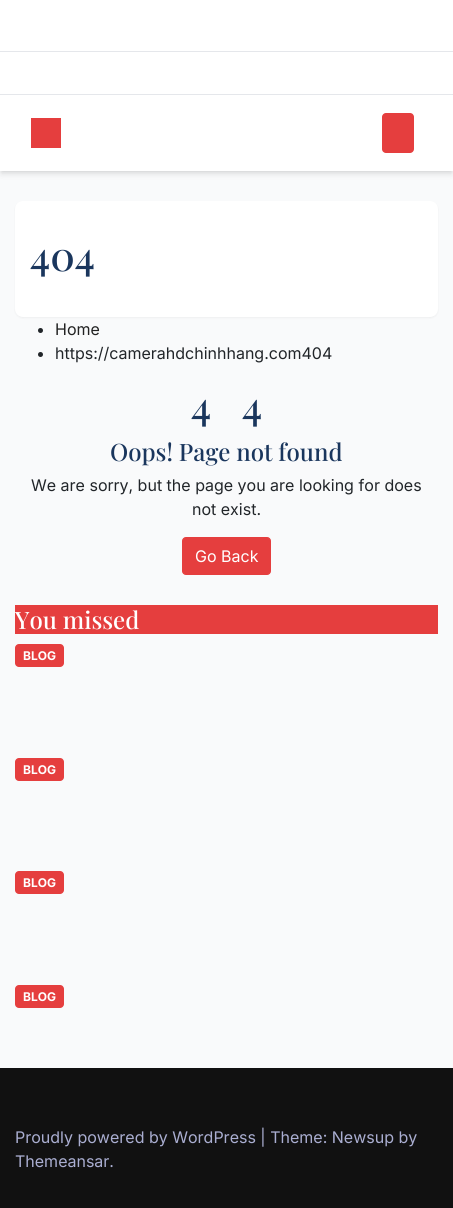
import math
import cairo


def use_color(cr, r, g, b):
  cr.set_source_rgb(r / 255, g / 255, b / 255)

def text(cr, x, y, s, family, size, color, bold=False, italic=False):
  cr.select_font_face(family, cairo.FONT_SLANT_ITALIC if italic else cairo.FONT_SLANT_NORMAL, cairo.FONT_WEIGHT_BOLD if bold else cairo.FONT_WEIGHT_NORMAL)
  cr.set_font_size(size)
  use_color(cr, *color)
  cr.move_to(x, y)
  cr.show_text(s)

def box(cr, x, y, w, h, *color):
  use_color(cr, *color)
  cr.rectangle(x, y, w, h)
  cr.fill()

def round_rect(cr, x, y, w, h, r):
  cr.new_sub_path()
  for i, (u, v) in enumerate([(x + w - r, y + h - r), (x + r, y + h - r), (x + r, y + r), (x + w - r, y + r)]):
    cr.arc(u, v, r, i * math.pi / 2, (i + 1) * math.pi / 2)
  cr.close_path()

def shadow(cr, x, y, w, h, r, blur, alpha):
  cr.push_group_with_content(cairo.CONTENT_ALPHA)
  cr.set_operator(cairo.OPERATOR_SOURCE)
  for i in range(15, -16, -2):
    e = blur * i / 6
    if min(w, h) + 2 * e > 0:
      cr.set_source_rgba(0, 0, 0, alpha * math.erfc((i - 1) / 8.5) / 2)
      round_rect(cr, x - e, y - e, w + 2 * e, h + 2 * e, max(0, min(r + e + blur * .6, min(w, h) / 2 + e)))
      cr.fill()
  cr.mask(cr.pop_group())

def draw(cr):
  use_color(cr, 249, 250, 251)
  cr.paint()
  use_color(cr, 0, 0, 0)
  shadow(cr, 2, -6, 449, 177, 0, 2, 0.1)
  shadow(cr, 1, -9, 451, 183, 0, 3, 0.1)
  box(cr, 0, 0, 453, 51, 255, 255, 255)
  box(cr, 0, 52, 453, 42, 255, 255, 255)
  box(cr, 0, 51, 453, 1, 229, 231, 235)
  box(cr, 0, 94, 453, 1, 229, 231, 235)
  box(cr, 0, 95, 453, 76, 255, 255, 255)
  box(cr, 31, 118, 30, 30, 229, 62, 62)
  round_rect(cr, 382, 113, 32, 40, 4)
  cr.fill()
  use_color(cr, 0, 0, 0)
  shadow(cr, 15, 202, 423, 116, 8, 1, 0.05)
  use_color(cr, 255, 255, 255)
  round_rect(cr, 15, 201, 423, 116, 8)
  cr.fill()
  use_color(cr, 33, 37, 41)
  cr.arc(40.5, 330.5, 2.5, 0, 2 * math.pi)
  cr.fill()
  cr.arc(40.5, 354.5, 2.5, 0, 2 * math.pi)
  cr.fill()
  use_color(cr, 229, 62, 62)
  round_rect(cr, 182.5, 537.5, 88, 37, 3.5)
  cr.fill_preserve()
  cr.set_line_width(1)
  cr.stroke()
  box(cr, 15, 605, 423, 29, 229, 62, 62)
  round_rect(cr, 15, 644, 49, 23, 4)
  cr.fill()
  round_rect(cr, 15, 758, 49, 23, 4)
  cr.fill()
  round_rect(cr, 15, 871, 49, 23, 4)
  cr.fill()
  round_rect(cr, 15, 985, 49, 23, 4)
  cr.fill()
  box(cr, 0, 1068, 453, 140, 17, 17, 17)
  text(cr, 30, 271, "404", "Playfair Display Medium", 40, (26, 54, 93))
  text(cr, 55, 335, "Home", "Inter", 16, (34, 34, 34))
  text(cr, 55, 359, "https://camerahdchinhhang.com404", "Inter", 16, (33, 37, 41))
  text(cr, 191, 421, "4", "Playfair Display Medium", 40, (26, 54, 93))
  text(cr, 242, 421, "4", "Playfair Display Medium", 40, (26, 54, 93))
  text(cr, 110, 461, "Oops! Page not found", "Playfair Display Medium", 24, (26, 54, 93))
  text(cr, 31, 491, "We are sorry, but the page you are looking for does", "Inter", 16, (33, 37, 41))
  text(cr, 192, 515, "not exist.", "Inter", 16, (33, 37, 41))
  text(cr, 195, 562, "Go Back", "Inter", 16, (255, 255, 255))
  text(cr, 15, 629, "You missed", "Playfair Display Medium", 24, (255, 255, 255))
  text(cr, 23, 660, "BLOG", "Inter", 12, (255, 255, 255), bold=True)
  text(cr, 23, 774, "BLOG", "Inter", 12, (255, 255, 255), bold=True)
  text(cr, 23, 887, "BLOG", "Inter", 12, (255, 255, 255), bold=True)
  text(cr, 23, 1001, "BLOG", "Inter", 12, (255, 255, 255), bold=True)
  text(cr, 15, 1143, "Proudly powered by WordPress | Theme: Newsup by", "Inter", 16, (170, 174, 209))
  text(cr, 15, 1167, "Themeansar.", "Inter", 16, (170, 174, 209))


surface = cairo.ImageSurface(cairo.FORMAT_RGB24, 453, 1208)
cr = cairo.Context(surface)
options = cairo.FontOptions()
options.set_hint_metrics(cairo.HINT_METRICS_OFF)
options.set_hint_style(cairo.HINT_STYLE_NONE)
cr.set_font_options(options)
cr.set_miter_limit(4)
draw(cr)
surface.write_to_png("out.png")
